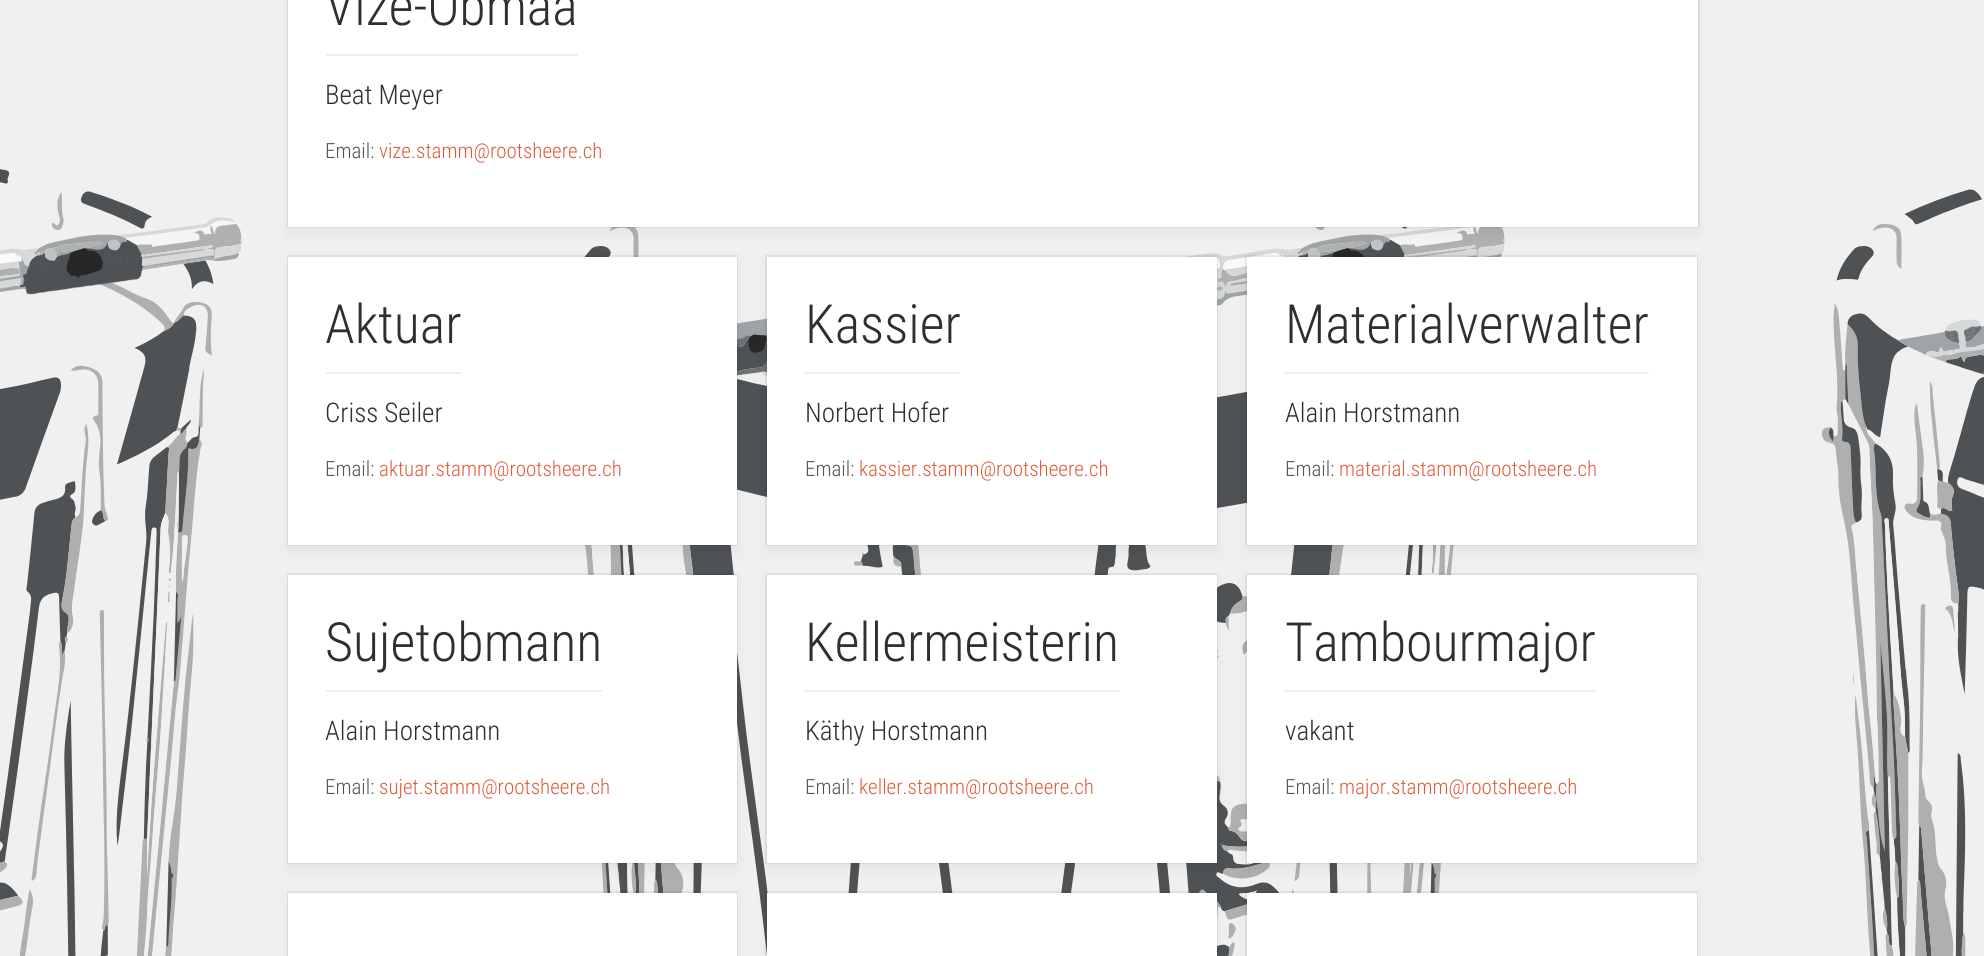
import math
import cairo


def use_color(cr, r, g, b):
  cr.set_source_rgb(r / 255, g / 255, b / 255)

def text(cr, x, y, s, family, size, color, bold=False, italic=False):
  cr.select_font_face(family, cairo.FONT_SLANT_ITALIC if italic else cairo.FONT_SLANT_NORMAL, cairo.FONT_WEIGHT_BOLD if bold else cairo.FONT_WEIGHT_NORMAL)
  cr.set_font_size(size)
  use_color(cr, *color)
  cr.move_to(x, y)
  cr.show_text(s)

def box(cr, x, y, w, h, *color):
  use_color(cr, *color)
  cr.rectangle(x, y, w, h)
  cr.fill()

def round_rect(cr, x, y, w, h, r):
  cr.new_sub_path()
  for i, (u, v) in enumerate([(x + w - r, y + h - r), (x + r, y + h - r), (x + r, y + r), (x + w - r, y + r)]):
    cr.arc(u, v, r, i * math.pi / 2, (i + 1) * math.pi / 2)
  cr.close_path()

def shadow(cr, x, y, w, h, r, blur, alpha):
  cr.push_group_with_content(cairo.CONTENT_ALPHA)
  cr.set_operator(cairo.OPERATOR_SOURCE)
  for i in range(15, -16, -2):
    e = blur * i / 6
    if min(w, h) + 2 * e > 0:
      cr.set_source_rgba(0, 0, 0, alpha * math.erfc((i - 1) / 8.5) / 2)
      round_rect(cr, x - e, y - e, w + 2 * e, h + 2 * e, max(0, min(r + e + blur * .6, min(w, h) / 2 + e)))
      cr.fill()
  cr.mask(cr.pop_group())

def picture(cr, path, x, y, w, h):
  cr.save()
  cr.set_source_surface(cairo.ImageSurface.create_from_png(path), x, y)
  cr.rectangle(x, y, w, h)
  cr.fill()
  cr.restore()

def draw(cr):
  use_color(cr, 240, 240, 240)
  cr.paint()
  picture(cr, "img_01.png", 0, 169, 1984, 787)
  use_color(cr, 0, 0, 0)
  shadow(cr, 288, -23, 1410, 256, 0, 7.5, 0.06)
  cr.rectangle(288, -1, 1411, 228)
  cr.set_source_rgba(0, 0, 0, 0.06)
  cr.stroke()
  box(cr, 288, 0, 1410, 227, 255, 255, 255)
  box(cr, 326, 54, 252, 2, 240, 240, 240)
  use_color(cr, 0, 0, 0)
  shadow(cr, 288, 263, 449, 288, 0, 7.5, 0.06)
  cr.rectangle(288, 256, 449, 289)
  cr.set_source_rgba(0, 0, 0, 0.06)
  cr.stroke()
  box(cr, 288, 257, 449, 288, 255, 255, 255)
  box(cr, 326, 372, 136, 2, 240, 240, 240)
  use_color(cr, 0, 0, 0)
  shadow(cr, 288, 581, 449, 288, 0, 7.5, 0.06)
  cr.rectangle(288, 574, 449, 289)
  cr.set_source_rgba(0, 0, 0, 0.06)
  cr.stroke()
  box(cr, 288, 575, 449, 288, 255, 255, 255)
  box(cr, 326, 690, 276, 2, 240, 240, 240)
  use_color(cr, 0, 0, 0)
  shadow(cr, 288, 899, 449, 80, 0, 7.5, 0.06)
  cr.rectangle(288, 892, 449, 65)
  cr.set_source_rgba(0, 0, 0, 0.06)
  cr.stroke()
  box(cr, 288, 893, 449, 63, 255, 255, 255)
  use_color(cr, 0, 0, 0)
  shadow(cr, 767, 263, 450, 288, 0, 7.5, 0.06)
  cr.rectangle(766, 256, 451, 289)
  cr.set_source_rgba(0, 0, 0, 0.06)
  cr.stroke()
  box(cr, 767, 257, 450, 288, 255, 255, 255)
  box(cr, 804, 372, 156, 2, 240, 240, 240)
  use_color(cr, 0, 0, 0)
  shadow(cr, 767, 581, 450, 288, 0, 7.5, 0.06)
  cr.rectangle(766, 574, 451, 289)
  cr.set_source_rgba(0, 0, 0, 0.06)
  cr.stroke()
  box(cr, 767, 575, 450, 288, 255, 255, 255)
  box(cr, 804, 690, 315, 2, 240, 240, 240)
  use_color(cr, 0, 0, 0)
  shadow(cr, 767, 899, 450, 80, 0, 7.5, 0.06)
  cr.rectangle(766, 892, 451, 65)
  cr.set_source_rgba(0, 0, 0, 0.06)
  cr.stroke()
  box(cr, 767, 893, 450, 63, 255, 255, 255)
  use_color(cr, 0, 0, 0)
  shadow(cr, 1247, 263, 450, 288, 0, 7.5, 0.06)
  cr.rectangle(1246, 256, 451, 289)
  cr.set_source_rgba(0, 0, 0, 0.06)
  cr.stroke()
  box(cr, 1247, 257, 450, 288, 255, 255, 255)
  box(cr, 1284, 372, 365, 2, 240, 240, 240)
  use_color(cr, 0, 0, 0)
  shadow(cr, 1247, 581, 450, 288, 0, 7.5, 0.06)
  cr.rectangle(1246, 574, 451, 289)
  cr.set_source_rgba(0, 0, 0, 0.06)
  cr.stroke()
  box(cr, 1247, 575, 450, 288, 255, 255, 255)
  box(cr, 1284, 690, 312, 2, 240, 240, 240)
  use_color(cr, 0, 0, 0)
  shadow(cr, 1247, 899, 450, 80, 0, 7.5, 0.06)
  cr.rectangle(1246, 892, 451, 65)
  cr.set_source_rgba(0, 0, 0, 0.06)
  cr.stroke()
  box(cr, 1247, 893, 450, 63, 255, 255, 255)
  text(cr, 325, 25, "Vize-Obmaa", "Roboto Condensed Light", 54, (47, 47, 47))
  text(cr, 325, 104, "Beat Meyer", "Roboto Condensed Light", 27, (47, 47, 47))
  text(cr, 325, 158, "Email:", "Roboto Condensed Light", 21, (85, 85, 85))
  text(cr, 379, 158, "vize.stamm@rootsheere.ch", "Roboto Condensed Light", 21, (224, 91, 58))
  text(cr, 325, 343, "Aktuar", "Roboto Condensed Light", 54, (47, 47, 47))
  text(cr, 325, 422, "Criss Seiler", "Roboto Condensed Light", 27, (47, 47, 47))
  text(cr, 325, 476, "Email:", "Roboto Condensed Light", 21, (85, 85, 85))
  text(cr, 379, 476, "aktuar.stamm@rootsheere.ch", "Roboto Condensed Light", 21, (224, 91, 58))
  text(cr, 325, 661, "Sujetobmann", "Roboto Condensed Light", 54, (47, 47, 47))
  text(cr, 325, 740, "Alain Horstmann", "Roboto Condensed Light", 27, (47, 47, 47))
  text(cr, 325, 794, "Email:", "Roboto Condensed Light", 21, (85, 85, 85))
  text(cr, 379, 794, "sujet.stamm@rootsheere.ch", "Roboto Condensed Light", 21, (224, 91, 58))
  text(cr, 805, 343, "Kassier", "Roboto Condensed Light", 54, (47, 47, 47))
  text(cr, 805, 422, "Norbert Hofer", "Roboto Condensed Light", 27, (47, 47, 47))
  text(cr, 805, 476, "Email:", "Roboto Condensed Light", 21, (85, 85, 85))
  text(cr, 859, 476, "kassier.stamm@rootsheere.ch", "Roboto Condensed Light", 21, (224, 91, 58))
  text(cr, 805, 661, "Kellermeisterin", "Roboto Condensed Light", 54, (47, 47, 47))
  text(cr, 805, 740, "Käthy Horstmann", "Roboto Condensed Light", 27, (47, 47, 47))
  text(cr, 805, 794, "Email:", "Roboto Condensed Light", 21, (85, 85, 85))
  text(cr, 859, 794, "keller.stamm@rootsheere.ch", "Roboto Condensed Light", 21, (224, 91, 58))
  text(cr, 1285, 343, "Materialverwalter", "Roboto Condensed Light", 54, (47, 47, 47))
  text(cr, 1285, 422, "Alain Horstmann", "Roboto Condensed Light", 27, (47, 47, 47))
  text(cr, 1285, 476, "Email:", "Roboto Condensed Light", 21, (85, 85, 85))
  text(cr, 1339, 476, "material.stamm@rootsheere.ch", "Roboto Condensed Light", 21, (224, 91, 58))
  text(cr, 1285, 661, "Tambourmajor", "Roboto Condensed Light", 54, (47, 47, 47))
  text(cr, 1285, 740, "vakant", "Roboto Condensed Light", 27, (47, 47, 47))
  text(cr, 1285, 794, "Email:", "Roboto Condensed Light", 21, (85, 85, 85))
  text(cr, 1339, 794, "major.stamm@rootsheere.ch", "Roboto Condensed Light", 21, (224, 91, 58))


surface = cairo.ImageSurface(cairo.FORMAT_RGB24, 1984, 956)
cr = cairo.Context(surface)
options = cairo.FontOptions()
options.set_hint_metrics(cairo.HINT_METRICS_OFF)
options.set_hint_style(cairo.HINT_STYLE_NONE)
cr.set_font_options(options)
cr.set_miter_limit(4)
draw(cr)
surface.write_to_png("out.png")
